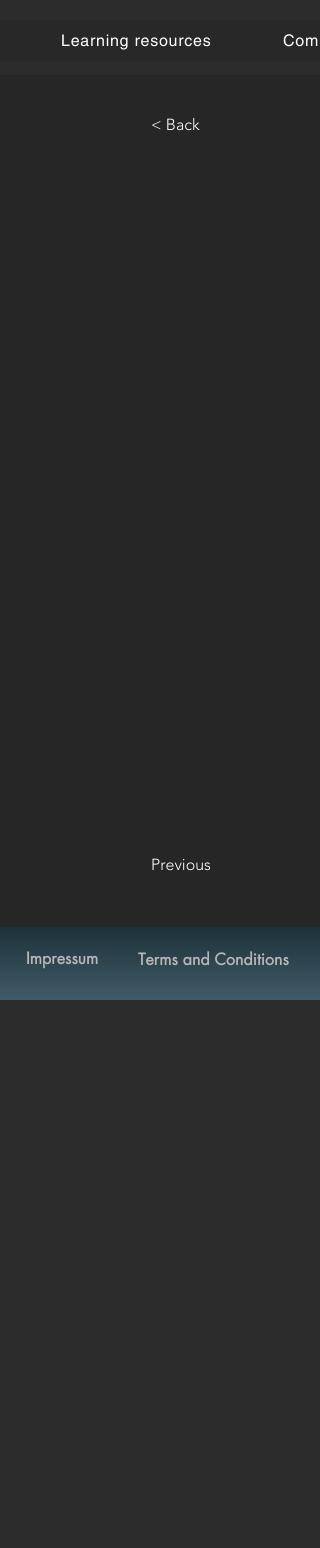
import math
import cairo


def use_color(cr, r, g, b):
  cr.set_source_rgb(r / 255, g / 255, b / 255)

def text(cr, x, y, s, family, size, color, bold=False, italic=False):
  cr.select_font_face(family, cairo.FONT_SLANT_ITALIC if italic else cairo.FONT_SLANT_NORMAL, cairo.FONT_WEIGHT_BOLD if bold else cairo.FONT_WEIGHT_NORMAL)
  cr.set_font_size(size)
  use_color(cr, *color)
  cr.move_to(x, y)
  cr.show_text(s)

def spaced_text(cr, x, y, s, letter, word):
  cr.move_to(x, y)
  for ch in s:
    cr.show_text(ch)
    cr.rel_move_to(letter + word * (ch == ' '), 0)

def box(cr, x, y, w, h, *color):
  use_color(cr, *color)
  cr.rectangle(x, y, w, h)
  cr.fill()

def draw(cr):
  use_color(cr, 45, 44, 44)
  cr.paint()
  box(cr, 0, 20, 320, 41, 41, 40, 40)
  box(cr, 0, 75, 320, 852, 39, 38, 38)
  gradient = cairo.LinearGradient(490, 1000, 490, 927)
  gradient.add_color_stop_rgba(0, 0.251, 0.357, 0.404, 1)
  gradient.add_color_stop_rgba(1, 0.114, 0.192, 0.227, 1)
  cr.set_source(gradient)
  cr.rectangle(0, 927, 320, 73)
  cr.fill()
  cr.select_font_face("helvetica")
  cr.set_font_size(16)
  use_color(cr, 255, 255, 255)
  spaced_text(cr, 61, 46, "Learning resources", 0.75, 0)
  spaced_text(cr, 283, 46, "Com", 0.75, 0)
  text(cr, 151, 130, "< Back", "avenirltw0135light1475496 Light", 16, (255, 255, 255))
  text(cr, 151, 870, "Previous", "avenirltw0135light1475496 Light", 16, (255, 255, 255))
  text(cr, 26, 964, "Impressum", "futura", 16, (183, 183, 183), bold=True)
  text(cr, 138, 965, "Terms and Conditions", "futura", 16, (183, 183, 183), bold=True)


surface = cairo.ImageSurface(cairo.FORMAT_RGB24, 320, 1548)
cr = cairo.Context(surface)
options = cairo.FontOptions()
options.set_hint_metrics(cairo.HINT_METRICS_OFF)
options.set_hint_style(cairo.HINT_STYLE_NONE)
cr.set_font_options(options)
cr.set_miter_limit(4)
draw(cr)
surface.write_to_png("out.png")
